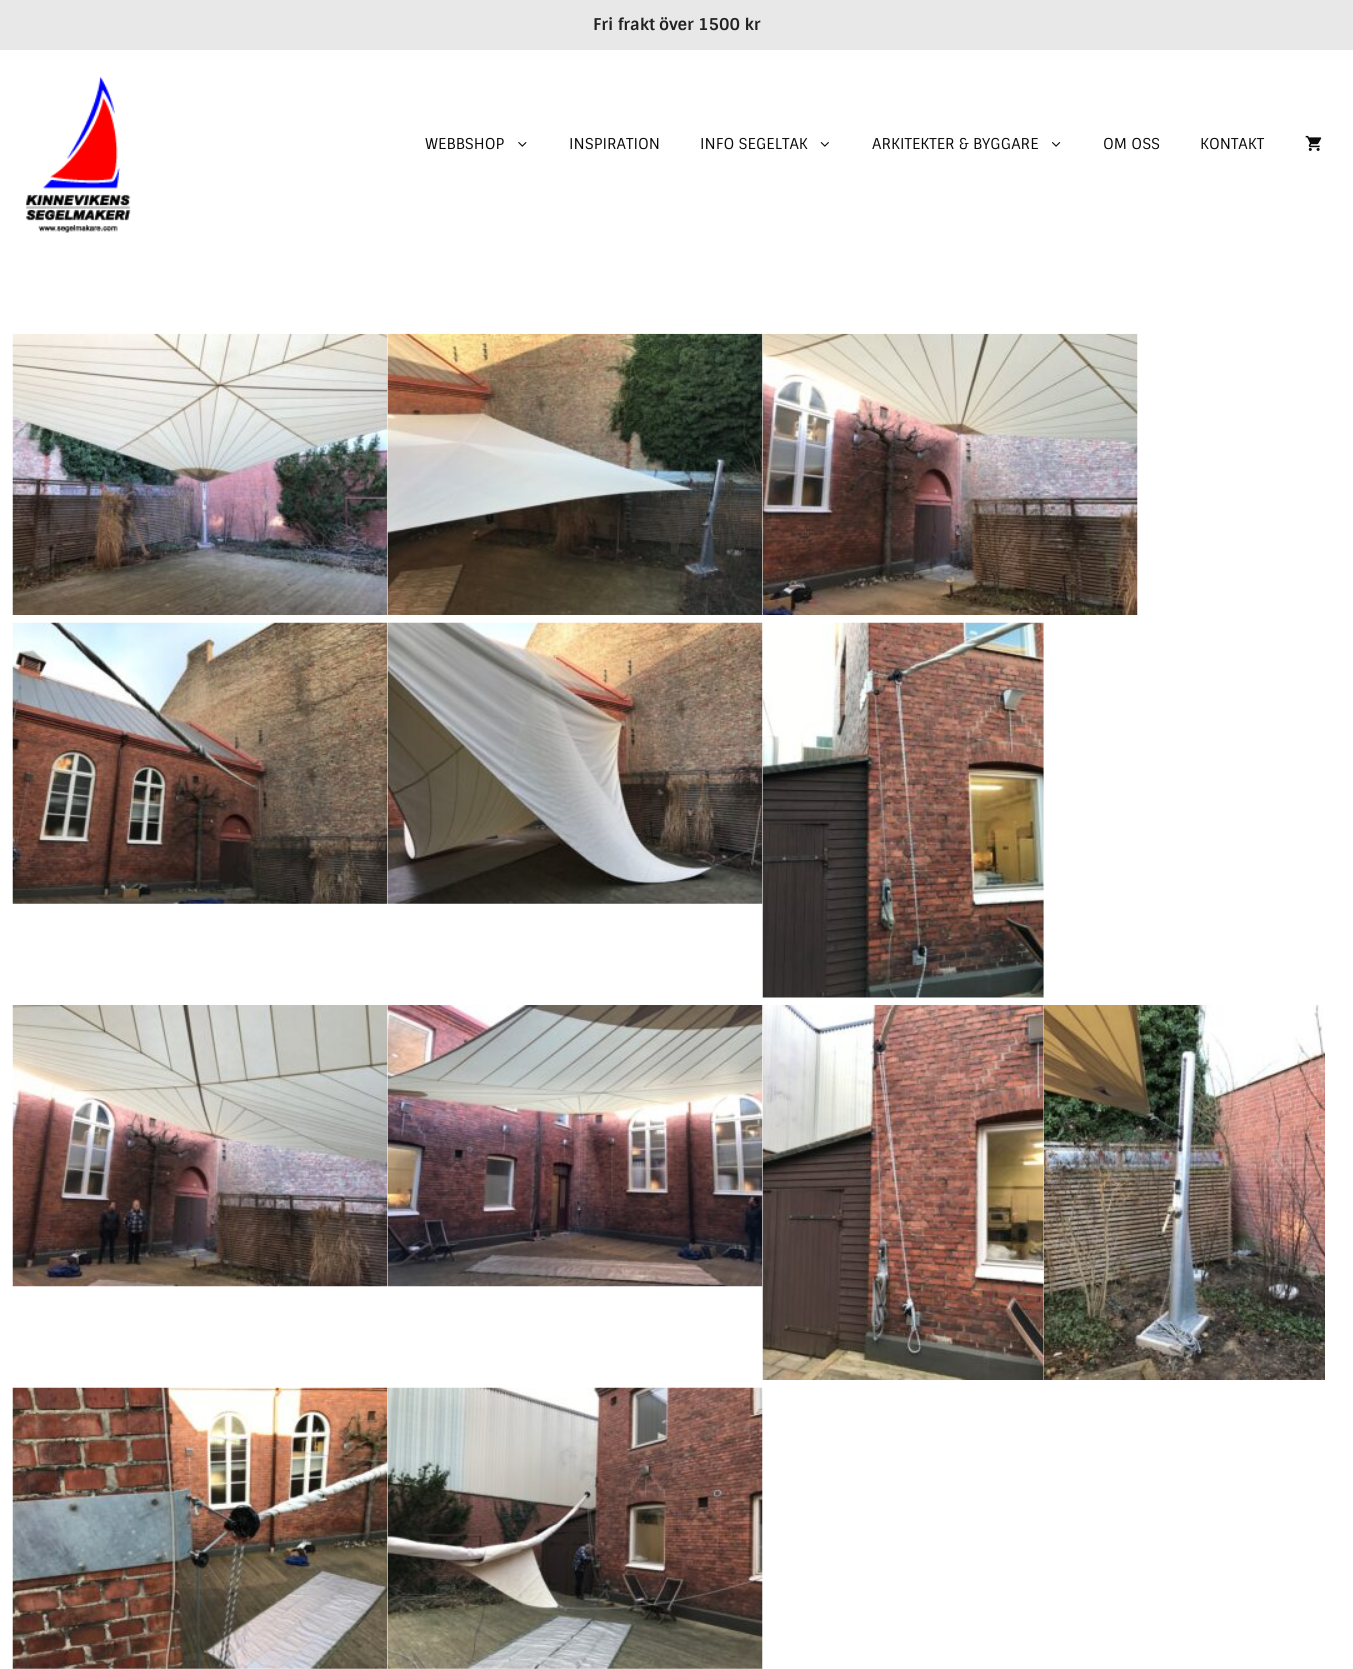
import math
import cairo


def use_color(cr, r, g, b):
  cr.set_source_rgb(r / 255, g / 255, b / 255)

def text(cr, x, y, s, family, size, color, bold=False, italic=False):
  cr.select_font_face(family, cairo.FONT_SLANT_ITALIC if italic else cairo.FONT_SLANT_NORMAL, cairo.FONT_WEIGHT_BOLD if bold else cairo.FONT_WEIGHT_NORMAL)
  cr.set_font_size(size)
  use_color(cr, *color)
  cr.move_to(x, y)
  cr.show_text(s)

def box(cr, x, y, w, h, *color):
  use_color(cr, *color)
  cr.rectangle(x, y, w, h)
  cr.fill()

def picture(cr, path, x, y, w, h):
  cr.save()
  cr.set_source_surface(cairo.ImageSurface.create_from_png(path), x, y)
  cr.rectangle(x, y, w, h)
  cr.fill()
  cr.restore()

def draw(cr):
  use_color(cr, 255, 255, 255)
  cr.paint()
  box(cr, 0, 0, 1353, 50, 232, 232, 232)
  picture(cr, "img_01.png", 26, 77, 105, 156)
  picture(cr, "img_02.png", 518, 142, 9, 5)
  picture(cr, "img_03.png", 820, 142, 9, 5)
  picture(cr, "img_04.png", 1052, 142, 9, 5)
  picture(cr, "img_05.png", 1305, 135, 17, 16)
  picture(cr, "img_06.png", 12, 333, 376, 282)
  picture(cr, "img_07.png", 387, 333, 376, 282)
  picture(cr, "img_08.png", 762, 333, 376, 282)
  picture(cr, "img_09.png", 12, 622, 376, 282)
  picture(cr, "img_10.png", 387, 622, 376, 282)
  picture(cr, "img_11.png", 762, 622, 282, 376)
  picture(cr, "img_12.png", 12, 1005, 376, 282)
  picture(cr, "img_13.png", 387, 1005, 376, 282)
  picture(cr, "img_14.png", 762, 1005, 282, 375)
  picture(cr, "img_15.png", 1043, 1005, 282, 375)
  picture(cr, "img_16.png", 12, 1387, 376, 282)
  picture(cr, "img_17.png", 387, 1387, 376, 282)
  text(cr, 593, 30, "Fri frakt över 1500 kr", "Sintony", 16.25, (34, 34, 34), bold=True)
  text(cr, 425, 149, "WEBBSHOP", "Sintony", 15, (10, 10, 10))
  text(cr, 569, 149, "INSPIRATION", "Sintony", 15, (10, 10, 10))
  text(cr, 700, 149, "INFO SEGELTAK", "Sintony", 15, (10, 10, 10))
  text(cr, 872, 149, "ARKITEKTER & BYGGARE", "Sintony", 15, (10, 10, 10))
  text(cr, 1103, 149, "OM OSS", "Sintony", 15, (10, 10, 10))
  text(cr, 1200, 149, "KONTAKT", "Sintony", 15, (10, 10, 10))


surface = cairo.ImageSurface(cairo.FORMAT_RGB24, 1353, 1669)
cr = cairo.Context(surface)
options = cairo.FontOptions()
options.set_hint_metrics(cairo.HINT_METRICS_OFF)
options.set_hint_style(cairo.HINT_STYLE_NONE)
cr.set_font_options(options)
cr.set_miter_limit(4)
draw(cr)
surface.write_to_png("out.png")
